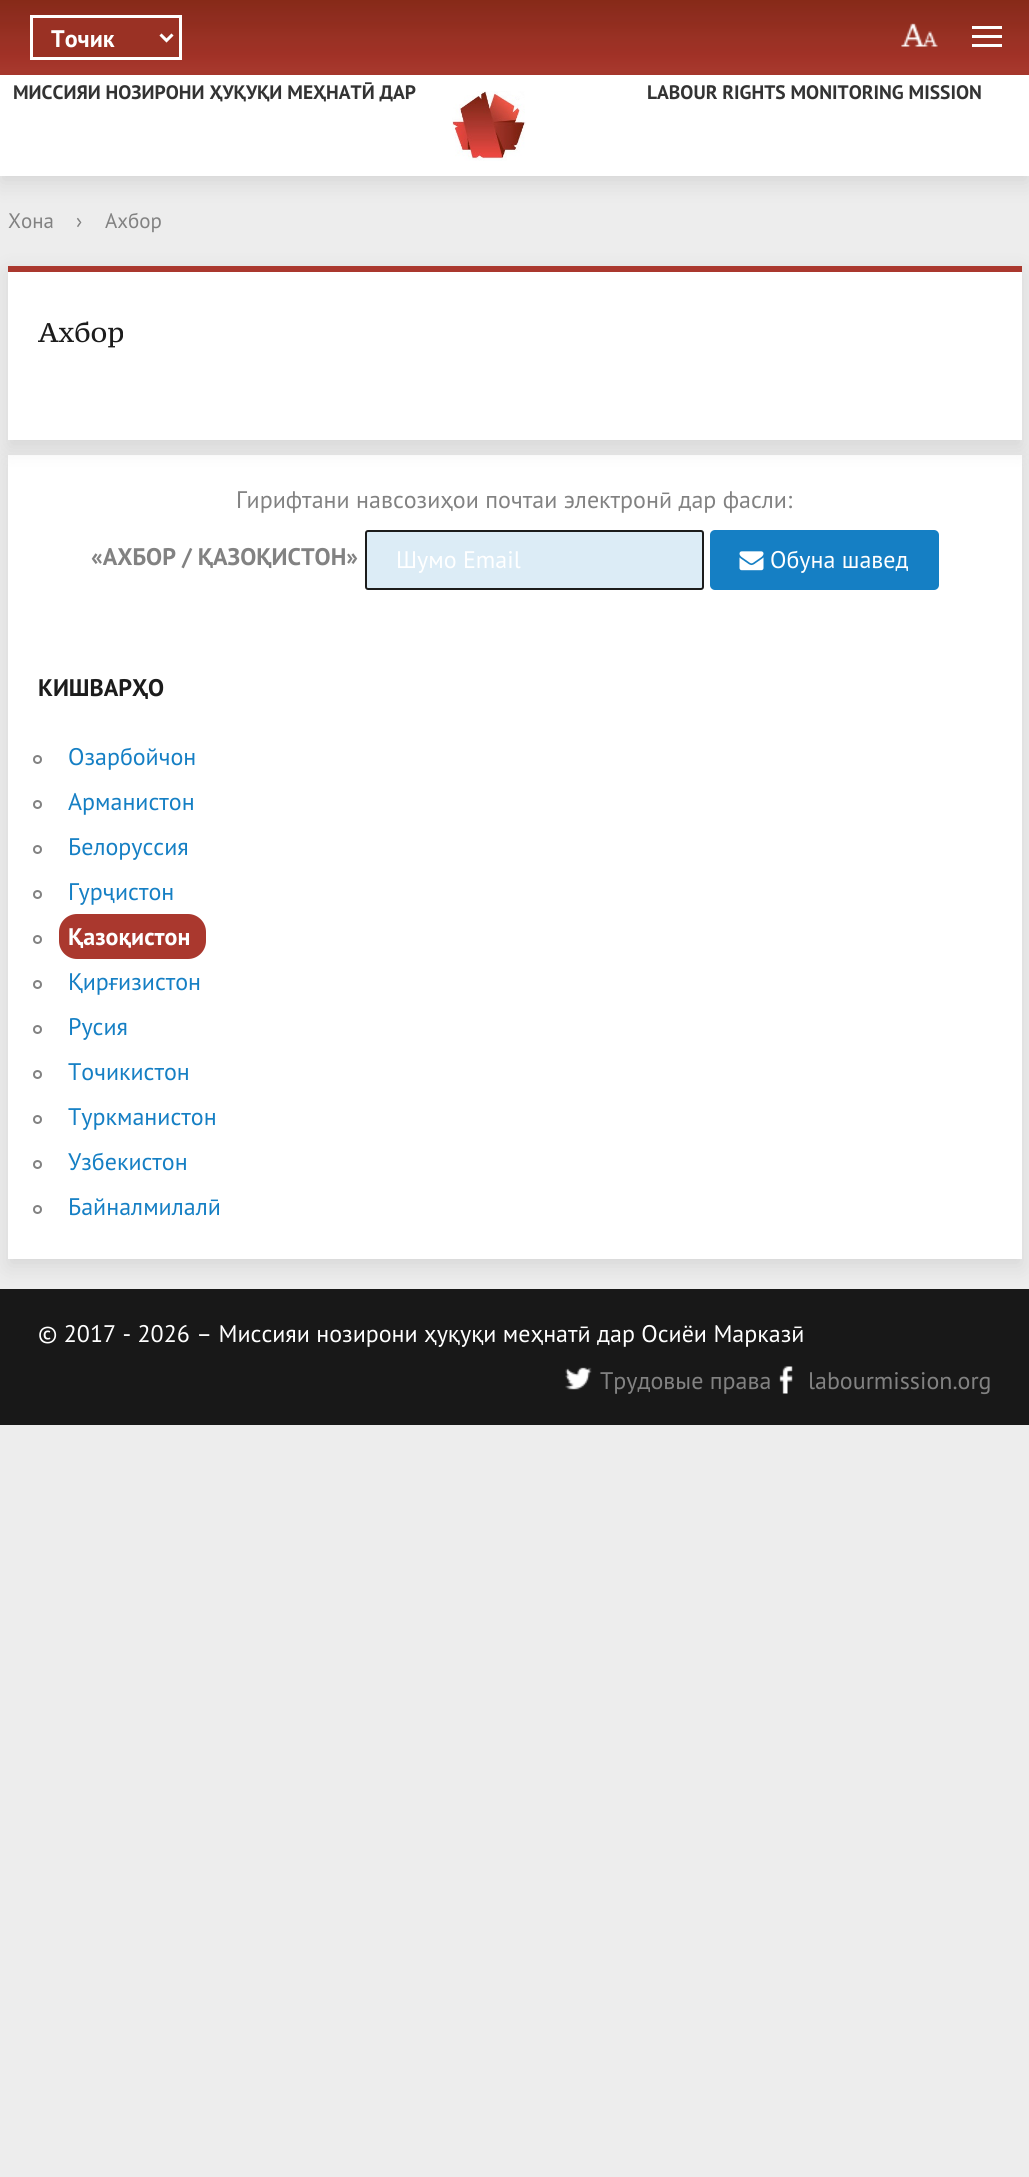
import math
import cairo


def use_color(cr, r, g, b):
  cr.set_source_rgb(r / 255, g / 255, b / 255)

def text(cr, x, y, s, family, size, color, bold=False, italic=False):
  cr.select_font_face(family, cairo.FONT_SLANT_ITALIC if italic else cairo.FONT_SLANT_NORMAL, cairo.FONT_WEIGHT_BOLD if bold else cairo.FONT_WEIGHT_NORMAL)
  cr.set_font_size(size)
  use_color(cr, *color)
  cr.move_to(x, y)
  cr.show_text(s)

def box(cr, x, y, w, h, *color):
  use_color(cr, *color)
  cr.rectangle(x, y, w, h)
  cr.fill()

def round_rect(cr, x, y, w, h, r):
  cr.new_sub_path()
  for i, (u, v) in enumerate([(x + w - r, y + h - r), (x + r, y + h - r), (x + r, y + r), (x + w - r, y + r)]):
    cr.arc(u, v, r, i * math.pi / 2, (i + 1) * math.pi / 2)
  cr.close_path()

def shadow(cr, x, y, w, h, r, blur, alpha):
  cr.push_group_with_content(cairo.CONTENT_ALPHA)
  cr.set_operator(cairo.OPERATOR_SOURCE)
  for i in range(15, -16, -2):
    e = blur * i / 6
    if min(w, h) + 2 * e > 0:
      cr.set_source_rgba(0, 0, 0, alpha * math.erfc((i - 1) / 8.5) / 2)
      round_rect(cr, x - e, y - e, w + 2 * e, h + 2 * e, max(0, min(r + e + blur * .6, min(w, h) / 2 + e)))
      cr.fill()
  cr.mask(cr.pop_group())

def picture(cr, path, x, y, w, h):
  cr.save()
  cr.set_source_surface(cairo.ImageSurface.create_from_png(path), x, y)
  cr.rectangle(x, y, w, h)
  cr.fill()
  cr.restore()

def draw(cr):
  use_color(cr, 237, 237, 237)
  cr.paint()
  gradient = cairo.LinearGradient(515, 0, 515, 75)
  gradient.add_color_stop_rgba(0, 0.529, 0.165, 0.094, 1)
  gradient.add_color_stop_rgba(0.25, 0.561, 0.176, 0.125, 1)
  gradient.add_color_stop_rgba(0.31, 0.569, 0.176, 0.118, 1)
  gradient.add_color_stop_rgba(0.5, 0.6, 0.192, 0.141, 1)
  gradient.add_color_stop_rgba(0.72, 0.627, 0.192, 0.149, 1)
  gradient.add_color_stop_rgba(0.94, 0.659, 0.22, 0.176, 1)
  gradient.add_color_stop_rgba(1, 0.663, 0.216, 0.176, 1)
  cr.set_source(gradient)
  cr.rectangle(0, 0, 1029, 75)
  cr.fill()
  use_color(cr, 0, 0, 0)
  shadow(cr, 0, 83, 1029, 100, 0, 11, 0.1)
  use_color(cr, 154, 49, 36)
  cr.rectangle(31.5, 16.5, 149, 42)
  cr.fill_preserve()
  use_color(cr, 255, 255, 255)
  cr.set_line_width(3)
  cr.stroke()
  cr.new_path()
  cr.move_to(160.5, 34.5)
  cr.line_to(166.5, 40.5)
  cr.line_to(172.5, 34.5)
  cr.stroke()
  picture(cr, "img_01.png", 901, 23, 37, 24)
  box(cr, 0, 75, 1029, 101, 255, 255, 255)
  picture(cr, "img_02.png", 452, 91, 74, 70)
  box(cr, 0, 1289, 1029, 136, 24, 24, 24)
  use_color(cr, 0, 0, 0)
  shadow(cr, 8, 462, 1014, 804, 0, 11, 0.1)
  box(cr, 8, 455, 1014, 804, 255, 255, 255)
  use_color(cr, 0, 0, 0)
  shadow(cr, 8, 273, 1014, 174, 0, 11, 0.1)
  box(cr, 8, 272, 1014, 168, 255, 255, 255)
  box(cr, 8, 266, 1014, 6, 170, 56, 46)
  use_color(cr, 220, 236, 246)
  round_rect(cr, 366, 531, 337, 58, 2)
  cr.fill_preserve()
  use_color(cr, 28, 28, 28)
  cr.set_line_width(2)
  cr.stroke()
  use_color(cr, 21, 127, 196)
  round_rect(cr, 710, 530, 229, 60, 5)
  cr.fill()
  picture(cr, "img_03.png", 739, 551, 25, 20)
  cr.arc(37.5, 759.5, 3.5, 0, 2 * math.pi)
  use_color(cr, 130, 130, 130)
  cr.stroke()
  cr.arc(37.5, 804.5, 3.5, 0, 2 * math.pi)
  cr.stroke()
  cr.arc(37.5, 849.5, 3.5, 0, 2 * math.pi)
  cr.stroke()
  cr.arc(37.5, 894.5, 3.5, 0, 2 * math.pi)
  cr.stroke()
  cr.arc(37.5, 939.5, 3.5, 0, 2 * math.pi)
  cr.stroke()
  use_color(cr, 170, 56, 46)
  round_rect(cr, 59, 914, 147, 45, 18)
  cr.fill()
  cr.arc(37.5, 984.5, 3.5, 0, 2 * math.pi)
  use_color(cr, 130, 130, 130)
  cr.stroke()
  cr.arc(37.5, 1029.5, 3.5, 0, 2 * math.pi)
  cr.stroke()
  cr.arc(37.5, 1074.5, 3.5, 0, 2 * math.pi)
  cr.stroke()
  cr.arc(37.5, 1119.5, 3.5, 0, 2 * math.pi)
  cr.stroke()
  cr.arc(37.5, 1164.5, 3.5, 0, 2 * math.pi)
  cr.stroke()
  cr.arc(37.5, 1209.5, 3.5, 0, 2 * math.pi)
  cr.stroke()
  box(cr, 972, 35, 30, 3, 255, 255, 255)
  box(cr, 972, 26, 30, 3, 255, 255, 255)
  box(cr, 972, 44, 30, 3, 255, 255, 255)
  picture(cr, "img_04.png", 565, 1367, 27, 23)
  picture(cr, "img_05.png", 779, 1366, 14, 28)
  text(cr, 51, 47, "Точик", "PT Sans", 24, (255, 255, 255), bold=True)
  text(cr, 13, 99, "МИССИЯИ НОЗИРОНИ ҲУҚУҚИ МЕҲНАТӢ ДАР", "PT Sans", 19.5, (51, 51, 51), bold=True)
  text(cr, 647, 99, "LABOUR RIGHTS MONITORING MISSION", "PT Sans", 19.5, (51, 51, 51), bold=True)
  text(cr, 8, 228, "Хона", "PT Sans", 21, (130, 130, 130))
  text(cr, 76, 228, "›", "PT Sans", 21, (130, 130, 130))
  text(cr, 105, 228, "Ахбор", "PT Sans", 21, (130, 130, 130))
  text(cr, 38, 342, "Ахбор", "PT Serif Caption", 27, (28, 28, 28))
  text(cr, 236, 508, "Гирифтани навсозиҳои почтаи электронӣ дар фасли:", "PT Sans", 24, (130, 130, 130))
  text(cr, 91, 565, "«АХБОР / ҚАЗОҚИСТОН»", "PT Sans", 24, (130, 130, 130), bold=True)
  text(cr, 396, 568, "Шумо Email", "PT Sans", 24, (255, 255, 255))
  text(cr, 770, 568, "Обуна шавед", "PT Sans", 24, (255, 255, 255))
  text(cr, 38, 696, "КИШВАРҲО", "PT Sans", 24, (28, 28, 28), bold=True)
  text(cr, 68, 765, "Озарбойчон", "PT Sans", 24, (21, 127, 196))
  text(cr, 68, 810, "Арманистон", "PT Sans", 24, (21, 127, 196))
  text(cr, 68, 855, "Белоруссия", "PT Sans", 24, (21, 127, 196))
  text(cr, 68, 900, "Гурҷистон", "PT Sans", 24, (21, 127, 196))
  text(cr, 68, 945, "Қазоқистон", "PT Sans", 24, (255, 255, 255), bold=True)
  text(cr, 68, 990, "Қирғизистон", "PT Sans", 24, (21, 127, 196))
  text(cr, 68, 1035, "Русия", "PT Sans", 24, (21, 127, 196))
  text(cr, 68, 1080, "Точикистон", "PT Sans", 24, (21, 127, 196))
  text(cr, 68, 1125, "Туркманистон", "PT Sans", 24, (21, 127, 196))
  text(cr, 68, 1170, "Узбекистон", "PT Sans", 24, (21, 127, 196))
  text(cr, 68, 1215, "Байналмилалӣ", "PT Sans", 24, (21, 127, 196))
  text(cr, 38, 1342, "© 2017 - 2026 – Миссияи нозирони ҳуқуқи меҳнатӣ дар Осиёи Марказӣ", "PT Sans", 24, (255, 255, 255))
  text(cr, 600, 1389, "Трудовые права", "PT Sans", 24, (130, 130, 130))
  text(cr, 808, 1389, "labourmission.org", "PT Sans", 24, (130, 130, 130))


surface = cairo.ImageSurface(cairo.FORMAT_RGB24, 1029, 2177)
cr = cairo.Context(surface)
options = cairo.FontOptions()
options.set_hint_metrics(cairo.HINT_METRICS_OFF)
options.set_hint_style(cairo.HINT_STYLE_NONE)
cr.set_font_options(options)
cr.set_miter_limit(4)
draw(cr)
surface.write_to_png("out.png")
